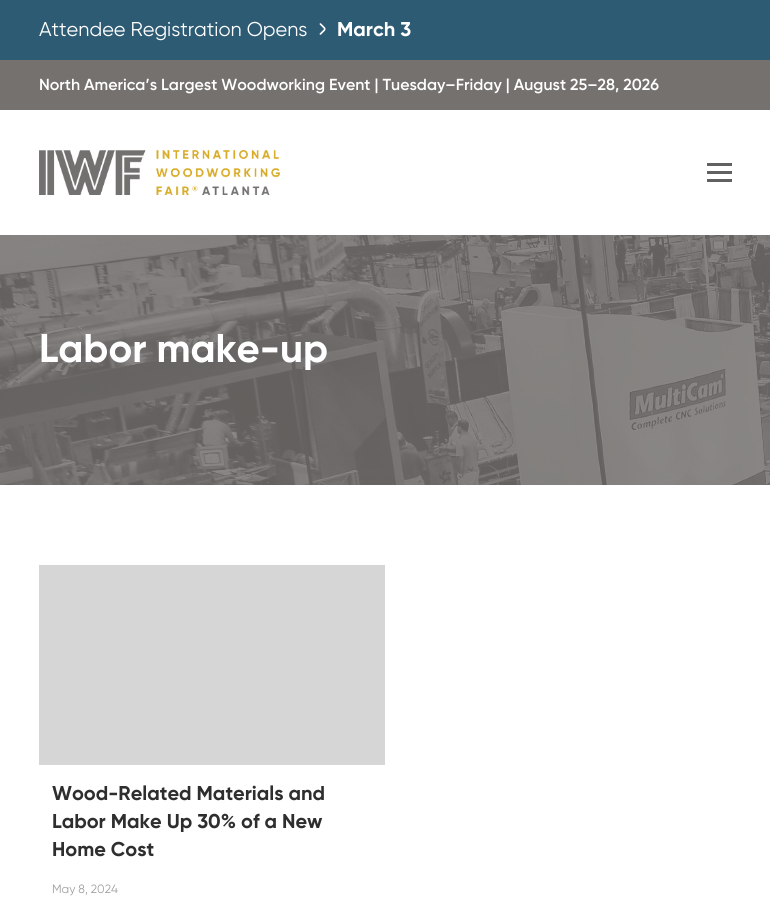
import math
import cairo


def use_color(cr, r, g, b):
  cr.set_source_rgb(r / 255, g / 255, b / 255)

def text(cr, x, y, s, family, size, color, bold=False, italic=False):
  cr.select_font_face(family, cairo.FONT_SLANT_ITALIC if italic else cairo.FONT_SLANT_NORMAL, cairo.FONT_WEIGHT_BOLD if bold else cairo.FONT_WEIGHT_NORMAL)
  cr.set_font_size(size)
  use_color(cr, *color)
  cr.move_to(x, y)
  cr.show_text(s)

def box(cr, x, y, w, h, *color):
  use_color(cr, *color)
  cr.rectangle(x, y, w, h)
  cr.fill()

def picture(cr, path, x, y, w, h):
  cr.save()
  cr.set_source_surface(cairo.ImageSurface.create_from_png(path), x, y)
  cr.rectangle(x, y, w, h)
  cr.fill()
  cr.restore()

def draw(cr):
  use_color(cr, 255, 255, 255)
  cr.paint()
  box(cr, 0, 0, 770, 60, 46, 91, 116)
  picture(cr, "img_01.png", 319, 23, 7, 12)
  box(cr, 0, 60, 770, 50, 116, 113, 111)
  picture(cr, "img_02.png", 39, 150, 241, 45)
  box(cr, 707, 163, 25, 3, 97, 97, 97)
  box(cr, 707, 171, 25, 3, 97, 97, 97)
  box(cr, 707, 179, 25, 3, 97, 97, 97)
  picture(cr, "img_03.png", 0, 235, 770, 250)
  box(cr, 39, 565, 346, 200, 214, 214, 214)
  text(cr, 39, 36, "Attendee Registration Opens", "Gilroy", 20, (255, 255, 255))
  text(cr, 337, 36, "March 3", "Gilroy", 20, (255, 255, 255), bold=True)
  text(cr, 39, 90, "North America’s Largest Woodworking Event | Tuesday–Friday | August 25–28, 2026", "Gilroy SemiBold", 16, (255, 255, 255))
  text(cr, 39, 362, "Labor make-up", "Gilroy", 40, (255, 255, 255), bold=True)
  text(cr, 52, 800, "Wood-Related Materials and", "Gilroy", 20, (46, 46, 46), bold=True)
  text(cr, 52, 828, "Labor Make Up 30% of a New", "Gilroy", 20, (46, 46, 46), bold=True)
  text(cr, 52, 856, "Home Cost", "Gilroy", 20, (46, 46, 46), bold=True)
  text(cr, 52, 893, "May 8, 2024", "Gilroy", 12, (158, 158, 158))


surface = cairo.ImageSurface(cairo.FORMAT_RGB24, 770, 913)
cr = cairo.Context(surface)
options = cairo.FontOptions()
options.set_hint_metrics(cairo.HINT_METRICS_OFF)
options.set_hint_style(cairo.HINT_STYLE_NONE)
cr.set_font_options(options)
cr.set_miter_limit(4)
draw(cr)
surface.write_to_png("out.png")
